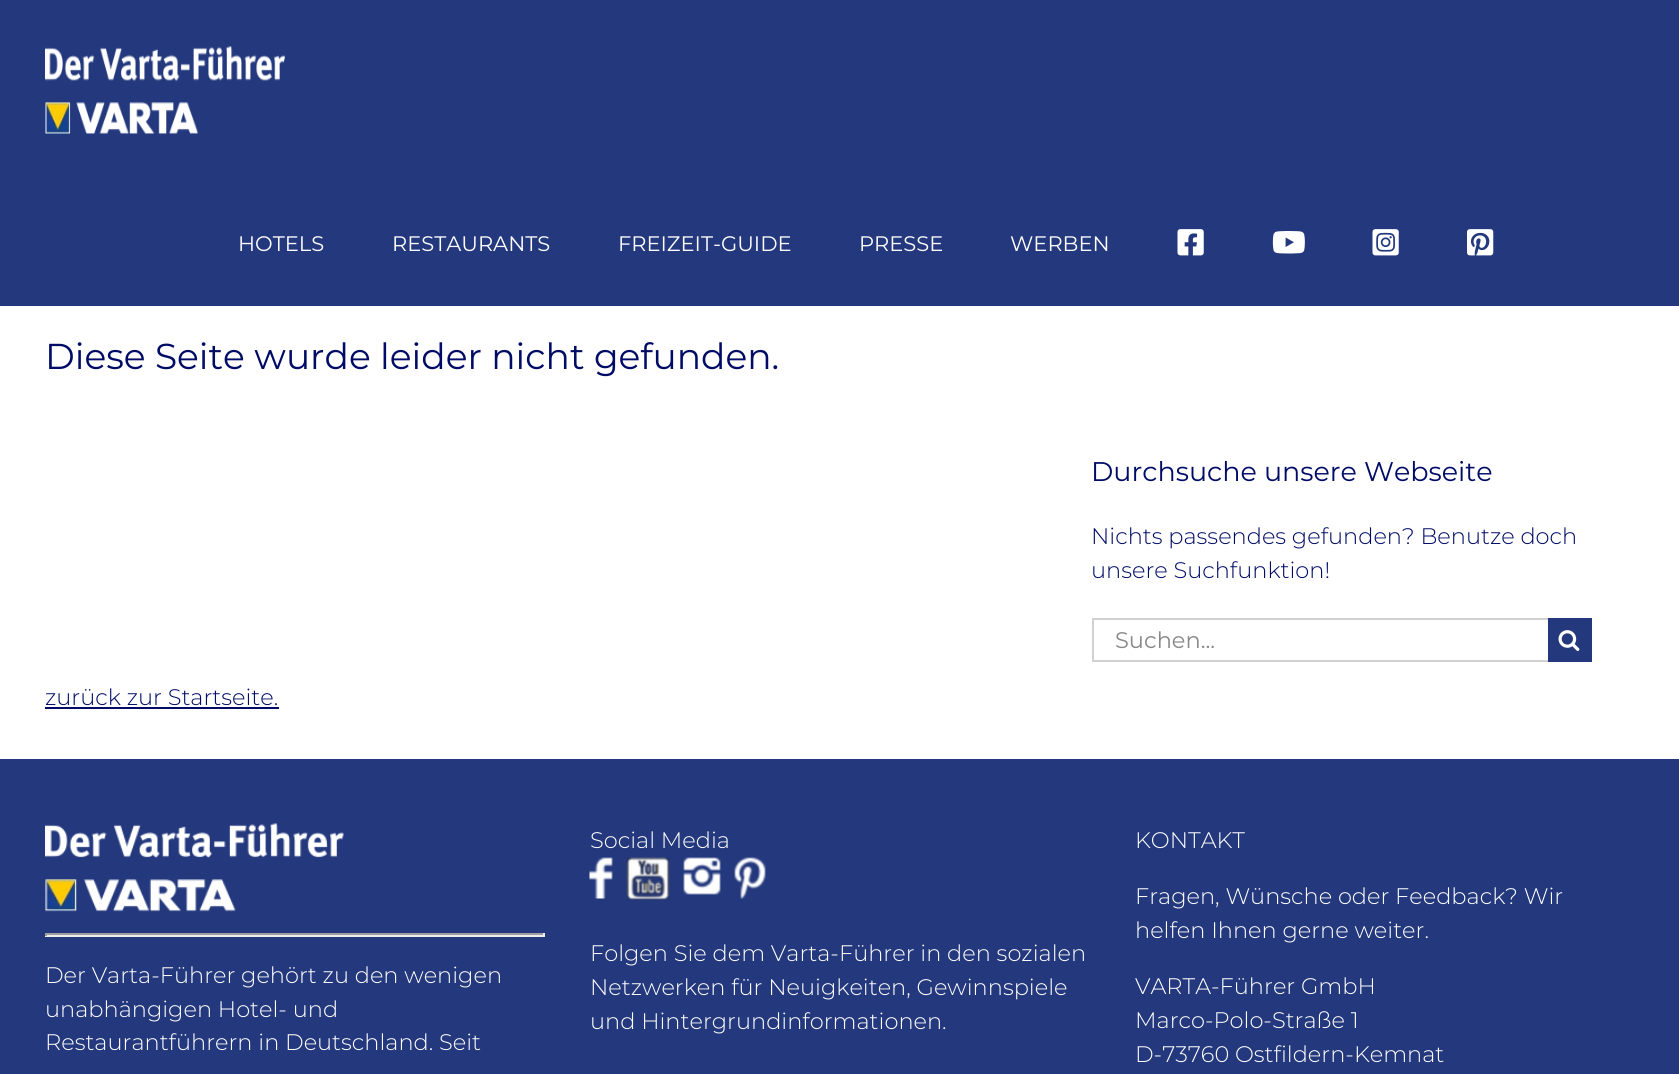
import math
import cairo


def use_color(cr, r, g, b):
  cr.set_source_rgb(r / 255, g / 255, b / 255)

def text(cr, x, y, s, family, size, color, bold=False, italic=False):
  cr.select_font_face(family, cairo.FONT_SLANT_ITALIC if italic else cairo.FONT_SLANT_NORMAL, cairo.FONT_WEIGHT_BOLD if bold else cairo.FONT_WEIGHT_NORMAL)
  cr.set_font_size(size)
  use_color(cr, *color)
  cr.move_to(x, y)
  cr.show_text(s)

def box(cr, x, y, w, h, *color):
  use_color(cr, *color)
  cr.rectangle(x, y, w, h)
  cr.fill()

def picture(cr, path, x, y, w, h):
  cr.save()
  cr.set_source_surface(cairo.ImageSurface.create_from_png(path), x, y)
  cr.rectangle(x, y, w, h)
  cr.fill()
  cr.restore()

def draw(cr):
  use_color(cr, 255, 255, 255)
  cr.paint()
  box(cr, 0, 0, 1679, 306, 36, 56, 125)
  picture(cr, "img_01.png", 45, 46, 240, 88)
  picture(cr, "img_02.png", 1177, 229, 27, 27)
  picture(cr, "img_03.png", 1272, 231, 33, 23)
  picture(cr, "img_04.png", 1372, 229, 27, 27)
  picture(cr, "img_05.png", 1467, 229, 27, 27)
  box(cr, 1092, 618, 456, 2, 210, 210, 210)
  box(cr, 1092, 660, 456, 2, 210, 210, 210)
  box(cr, 1092, 618, 2, 44, 210, 210, 210)
  box(cr, 1548, 618, 44, 44, 36, 56, 125)
  picture(cr, "img_06.png", 1558, 630, 22, 21)
  box(cr, 45, 707, 234, 2, 0, 11, 102)
  box(cr, 0, 759, 1679, 315, 36, 56, 125)
  picture(cr, "img_07.png", 45, 823, 299, 89)
  box(cr, 45, 933, 500, 2, 159, 159, 159)
  box(cr, 543, 933, 2, 3, 238, 238, 238)
  box(cr, 45, 935, 500, 2, 238, 238, 238)
  box(cr, 45, 933, 2, 3, 159, 159, 159)
  picture(cr, "img_08.png", 589, 857, 24, 42)
  picture(cr, "img_09.png", 626, 857, 44, 44)
  picture(cr, "img_10.png", 683, 857, 38, 38)
  picture(cr, "img_11.png", 734, 857, 32, 42)
  text(cr, 238, 251, "HOTELS", "Montserrat", 21, (255, 255, 255))
  text(cr, 392, 251, "RESTAURANTS", "Montserrat", 21, (255, 255, 255))
  text(cr, 618, 251, "FREIZEIT-GUIDE", "Montserrat", 21, (255, 255, 255))
  text(cr, 859, 251, "PRESSE", "Montserrat", 21, (255, 255, 255))
  text(cr, 1010, 251, "WERBEN", "Montserrat", 21, (255, 255, 255))
  text(cr, 45, 369, "Diese Seite wurde leider nicht gefunden.", "Montserrat", 36, (0, 11, 102))
  text(cr, 1091, 481, "Durchsuche unsere Webseite", "Montserrat", 27, (0, 11, 102))
  text(cr, 1091, 544, "Nichts passendes gefunden? Benutze doch", "Montserrat Light", 22.5, (0, 11, 102))
  text(cr, 1091, 578, "unsere Suchfunktion!", "Montserrat Light", 22.5, (0, 11, 102))
  text(cr, 1115, 648, "Suchen...", "Montserrat", 22.5, (136, 136, 136))
  text(cr, 45, 705, "zurück zur Startseite.", "Montserrat Light", 22.5, (0, 11, 102))
  text(cr, 45, 983, "Der Varta-Führer gehört zu den wenigen", "Montserrat Light", 22.5, (255, 255, 255))
  text(cr, 45, 1017, "unabhängigen Hotel- und", "Montserrat Light", 22.5, (255, 255, 255))
  text(cr, 45, 1050, "Restaurantführern in Deutschland. Seit", "Montserrat Light", 22.5, (255, 255, 255))
  text(cr, 590, 848, "Social Media", "Montserrat Light", 22.5, (255, 255, 255))
  text(cr, 590, 961, "Folgen Sie dem Varta-Führer in den sozialen", "Montserrat Light", 22.5, (255, 255, 255))
  text(cr, 590, 995, "Netzwerken für Neuigkeiten, Gewinnspiele", "Montserrat Light", 22.5, (255, 255, 255))
  text(cr, 590, 1029, "und Hintergrundinformationen.", "Montserrat Light", 22.5, (255, 255, 255))
  text(cr, 1135, 848, "KONTAKT", "Montserrat Light", 22.5, (255, 255, 255))
  text(cr, 1135, 904, "Fragen, Wünsche oder Feedback? Wir", "Montserrat Light", 22.5, (255, 255, 255))
  text(cr, 1135, 938, "helfen Ihnen gerne weiter.", "Montserrat Light", 22.5, (255, 255, 255))
  text(cr, 1135, 994, "VARTA-Führer GmbH", "Montserrat Light", 22.5, (255, 255, 255))
  text(cr, 1135, 1028, "Marco-Polo-Straße 1", "Montserrat Light", 22.5, (255, 255, 255))
  text(cr, 1135, 1062, "D-73760 Ostfildern-Kemnat", "Montserrat Light", 22.5, (255, 255, 255))


surface = cairo.ImageSurface(cairo.FORMAT_RGB24, 1679, 1074)
cr = cairo.Context(surface)
options = cairo.FontOptions()
options.set_hint_metrics(cairo.HINT_METRICS_OFF)
options.set_hint_style(cairo.HINT_STYLE_NONE)
cr.set_font_options(options)
cr.set_miter_limit(4)
draw(cr)
surface.write_to_png("out.png")
